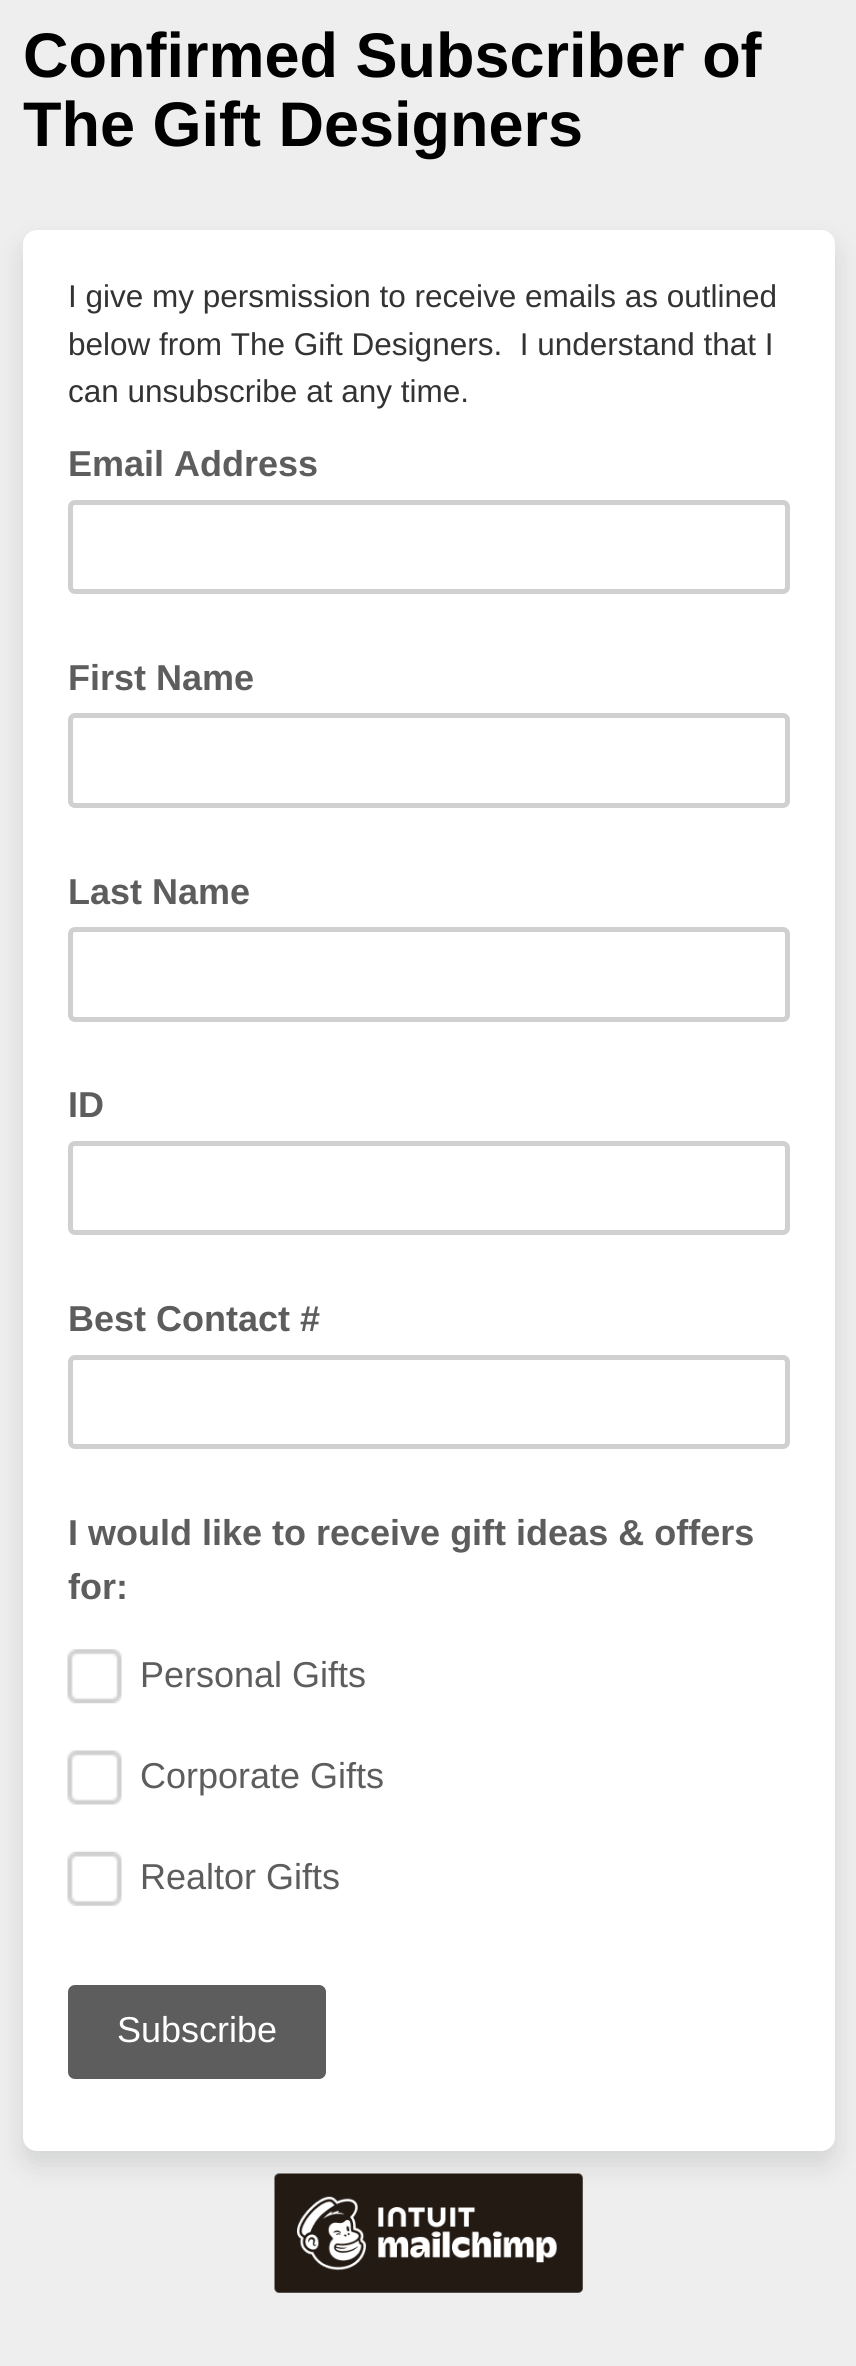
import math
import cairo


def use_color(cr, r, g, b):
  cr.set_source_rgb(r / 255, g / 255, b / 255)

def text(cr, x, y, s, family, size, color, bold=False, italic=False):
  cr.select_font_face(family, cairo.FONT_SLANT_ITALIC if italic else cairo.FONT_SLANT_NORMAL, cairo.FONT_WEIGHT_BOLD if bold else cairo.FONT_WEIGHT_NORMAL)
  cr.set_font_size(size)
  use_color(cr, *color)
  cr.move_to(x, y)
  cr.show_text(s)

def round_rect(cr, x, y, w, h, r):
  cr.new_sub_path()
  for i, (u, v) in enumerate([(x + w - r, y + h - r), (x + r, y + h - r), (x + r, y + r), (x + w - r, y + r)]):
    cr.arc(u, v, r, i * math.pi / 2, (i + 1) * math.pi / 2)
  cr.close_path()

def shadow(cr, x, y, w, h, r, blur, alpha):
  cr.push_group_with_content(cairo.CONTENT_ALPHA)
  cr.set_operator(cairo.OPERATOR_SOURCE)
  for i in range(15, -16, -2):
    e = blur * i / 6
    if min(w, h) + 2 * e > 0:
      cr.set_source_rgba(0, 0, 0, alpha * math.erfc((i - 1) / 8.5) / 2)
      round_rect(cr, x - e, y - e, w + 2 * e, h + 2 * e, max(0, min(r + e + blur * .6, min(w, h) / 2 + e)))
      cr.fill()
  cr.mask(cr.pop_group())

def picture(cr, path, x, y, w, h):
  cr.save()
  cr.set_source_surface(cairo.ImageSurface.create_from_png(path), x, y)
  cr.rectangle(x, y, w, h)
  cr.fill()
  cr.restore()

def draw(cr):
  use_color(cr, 238, 238, 238)
  cr.paint()
  use_color(cr, 13, 18, 22)
  shadow(cr, 23, 243, 812, 1922, 14, 13.5, 0.12)
  use_color(cr, 255, 255, 255)
  round_rect(cr, 23, 230, 812, 1921, 14)
  cr.fill()
  round_rect(cr, 70.5, 502.5, 717, 89, 4.5)
  use_color(cr, 208, 208, 208)
  cr.set_line_width(5)
  cr.stroke()
  round_rect(cr, 70.5, 715.5, 717, 90, 4.5)
  cr.stroke()
  round_rect(cr, 70.5, 929.5, 717, 90, 4.5)
  cr.stroke()
  round_rect(cr, 70.5, 1143.5, 717, 89, 4.5)
  cr.stroke()
  round_rect(cr, 70.5, 1357.5, 717, 89, 4.5)
  cr.stroke()
  picture(cr, "img_01.png", 67, 1649, 55, 55)
  picture(cr, "img_02.png", 67, 1750, 55, 55)
  picture(cr, "img_03.png", 67, 1851, 55, 55)
  use_color(cr, 93, 93, 93)
  round_rect(cr, 68, 1985, 258, 94, 7)
  cr.fill()
  picture(cr, "img_04.png", 274, 2173, 309, 120)
  text(cr, 23, 77, "Confirmed Subscriber of", "Liberation Sans", 63, (0, 0, 0), bold=True)
  text(cr, 23, 146, "The Gift Designers", "Liberation Sans", 63, (0, 0, 0), bold=True)
  text(cr, 68, 307, "I give my persmission to receive emails as outlined", "Liberation Sans", 31.5, (51, 51, 51))
  text(cr, 68, 355, "below from The Gift Designers.  I understand that I", "Liberation Sans", 31.5, (51, 51, 51))
  text(cr, 68, 402, "can unsubscribe at any time.", "Liberation Sans", 31.5, (51, 51, 51))
  text(cr, 68, 476, "Email Address", "Liberation Sans", 36, (93, 93, 93), bold=True)
  text(cr, 68, 690, "First Name", "Liberation Sans", 36, (93, 93, 93), bold=True)
  text(cr, 68, 904, "Last Name", "Liberation Sans", 36, (93, 93, 93), bold=True)
  text(cr, 68, 1117, "ID", "Liberation Sans", 36, (93, 93, 93), bold=True)
  text(cr, 68, 1331, "Best Contact #", "Liberation Sans", 36, (93, 93, 93), bold=True)
  text(cr, 68, 1545, "I would like to receive gift ideas & offers", "Liberation Sans", 36, (93, 93, 93), bold=True)
  text(cr, 68, 1599, "for:", "Liberation Sans", 36, (93, 93, 93), bold=True)
  text(cr, 140, 1687, "Personal Gifts", "Liberation Sans", 36, (93, 93, 93))
  text(cr, 140, 1788, "Corporate Gifts", "Liberation Sans", 36, (93, 93, 93))
  text(cr, 140, 1889, "Realtor Gifts", "Liberation Sans", 36, (93, 93, 93))
  text(cr, 117, 2042, "Subscribe", "Liberation Sans", 36, (255, 255, 255))


surface = cairo.ImageSurface(cairo.FORMAT_RGB24, 856, 2366)
cr = cairo.Context(surface)
options = cairo.FontOptions()
options.set_hint_metrics(cairo.HINT_METRICS_OFF)
options.set_hint_style(cairo.HINT_STYLE_NONE)
cr.set_font_options(options)
cr.set_miter_limit(4)
draw(cr)
surface.write_to_png("out.png")
